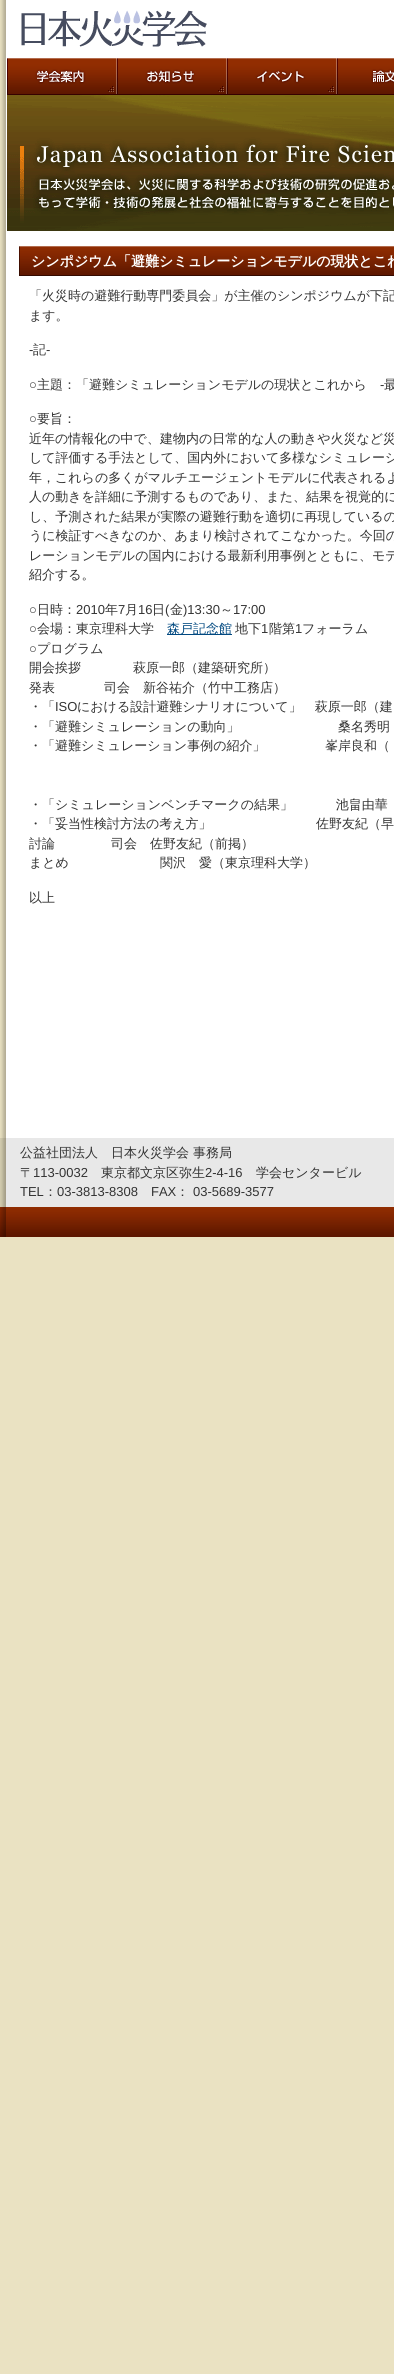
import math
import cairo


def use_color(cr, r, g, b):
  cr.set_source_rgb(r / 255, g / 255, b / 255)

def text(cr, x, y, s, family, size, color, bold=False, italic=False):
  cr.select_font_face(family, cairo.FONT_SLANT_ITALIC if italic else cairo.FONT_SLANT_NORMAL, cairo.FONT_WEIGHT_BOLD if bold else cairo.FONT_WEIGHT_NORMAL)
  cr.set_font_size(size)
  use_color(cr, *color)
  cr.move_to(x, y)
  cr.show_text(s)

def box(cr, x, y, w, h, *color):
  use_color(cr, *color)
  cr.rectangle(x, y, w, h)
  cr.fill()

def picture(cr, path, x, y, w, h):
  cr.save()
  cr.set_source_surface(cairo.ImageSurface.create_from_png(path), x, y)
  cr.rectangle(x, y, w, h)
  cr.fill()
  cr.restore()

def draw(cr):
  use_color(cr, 234, 226, 194)
  cr.paint()
  picture(cr, "img_01.png", 0, 0, 394, 1138)
  picture(cr, "img_02.png", 21, 10, 186, 37)
  picture(cr, "img_03.png", 7, 58, 110, 37)
  picture(cr, "img_04.png", 117, 58, 110, 37)
  picture(cr, "img_05.png", 227, 58, 110, 37)
  picture(cr, "img_06.png", 337, 58, 57, 37)
  picture(cr, "img_07.png", 7, 95, 387, 136)
  picture(cr, "img_08.png", 19, 246, 375, 30)
  box(cr, 167, 634, 65, 1, 0, 72, 128)
  picture(cr, "img_09.png", 0, 1138, 394, 69)
  picture(cr, "img_10.png", 0, 1207, 1, 30)
  picture(cr, "img_11.png", 1, 1207, 393, 30)
  text(cr, 31, 266, "シンポジウム「避難シミュレーションモデルの現状とこれ", "WenQuanYi Zen Hei", 14, (255, 255, 255), bold=True)
  text(cr, 29, 300, "「火災時の避難行動専門委員会」が主催のシンポジウムが下記", "WenQuanYi Zen Hei Medium", 13, (51, 51, 51))
  text(cr, 29, 320, "ます。", "WenQuanYi Zen Hei Medium", 13, (51, 51, 51))
  text(cr, 29, 354, "-", "Liberation Sans", 13, (51, 51, 51))
  text(cr, 33, 354, "記", "WenQuanYi Zen Hei Medium", 13, (51, 51, 51))
  text(cr, 46, 354, "-", "Liberation Sans", 13, (51, 51, 51))
  text(cr, 29, 389, "○", "Liberation Sans", 13, (51, 51, 51))
  text(cr, 37, 389, "主題：「避難シミュレーションモデルの現状とこれから", "WenQuanYi Zen Hei Medium", 13, (51, 51, 51))
  text(cr, 380, 389, "-", "Liberation Sans", 13, (51, 51, 51))
  text(cr, 384, 389, "最", "WenQuanYi Zen Hei Medium", 13, (51, 51, 51))
  text(cr, 29, 423, "○", "Liberation Sans", 13, (51, 51, 51))
  text(cr, 37, 423, "要旨：", "WenQuanYi Zen Hei Medium", 13, (51, 51, 51))
  text(cr, 29, 443, "近年の情報化の中で、建物内の日常的な人の動きや火災など災", "WenQuanYi Zen Hei Medium", 13, (51, 51, 51))
  text(cr, 29, 462, "して評価する手法として、国内外において多様なシミュレーシ", "WenQuanYi Zen Hei Medium", 13, (51, 51, 51))
  text(cr, 29, 482, "年，これらの多くがマルチエージェントモデルに代表されるよ", "WenQuanYi Zen Hei Medium", 13, (51, 51, 51))
  text(cr, 29, 501, "人の動きを詳細に予測するものであり、また、結果を視覚的に", "WenQuanYi Zen Hei Medium", 13, (51, 51, 51))
  text(cr, 29, 521, "し、予測された結果が実際の避難行動を適切に再現しているの", "WenQuanYi Zen Hei Medium", 13, (51, 51, 51))
  text(cr, 29, 540, "うに検証すべきなのか、あまり検討されてこなかった。今回の", "WenQuanYi Zen Hei Medium", 13, (51, 51, 51))
  text(cr, 29, 560, "レーションモデルの国内における最新利用事例とともに、モデ", "WenQuanYi Zen Hei Medium", 13, (51, 51, 51))
  text(cr, 29, 579, "紹介する。", "WenQuanYi Zen Hei Medium", 13, (51, 51, 51))
  text(cr, 29, 614, "○", "Liberation Sans", 13, (51, 51, 51))
  text(cr, 37, 614, "日時：", "WenQuanYi Zen Hei Medium", 13, (51, 51, 51))
  text(cr, 76, 614, "2010", "Liberation Sans", 13, (51, 51, 51))
  text(cr, 105, 614, "年", "WenQuanYi Zen Hei Medium", 13, (51, 51, 51))
  text(cr, 118, 614, "7", "Liberation Sans", 13, (51, 51, 51))
  text(cr, 125, 614, "月", "WenQuanYi Zen Hei Medium", 13, (51, 51, 51))
  text(cr, 138, 614, "16", "Liberation Sans", 13, (51, 51, 51))
  text(cr, 152, 614, "日", "WenQuanYi Zen Hei Medium", 13, (51, 51, 51))
  text(cr, 165, 614, "(", "Liberation Sans", 13, (51, 51, 51))
  text(cr, 170, 614, "金", "WenQuanYi Zen Hei Medium", 13, (51, 51, 51))
  text(cr, 183, 614, ")13:30", "Liberation Sans", 13, (51, 51, 51))
  text(cr, 220, 614, "～", "WenQuanYi Zen Hei Medium", 13, (51, 51, 51))
  text(cr, 233, 614, "17:00", "Liberation Sans", 13, (51, 51, 51))
  text(cr, 29, 633, "○", "Liberation Sans", 13, (51, 51, 51))
  text(cr, 37, 633, "会場：東京理科大学", "WenQuanYi Zen Hei Medium", 13, (51, 51, 51))
  text(cr, 167, 633, "森戸記念館", "WenQuanYi Zen Hei Medium", 13, (0, 72, 128))
  text(cr, 235, 633, "地下", "WenQuanYi Zen Hei Medium", 13, (51, 51, 51))
  text(cr, 261, 633, "1", "Liberation Sans", 13, (51, 51, 51))
  text(cr, 269, 633, "階第", "WenQuanYi Zen Hei Medium", 13, (51, 51, 51))
  text(cr, 295, 633, "1", "Liberation Sans", 13, (51, 51, 51))
  text(cr, 302, 633, "フォーラム", "WenQuanYi Zen Hei Medium", 13, (51, 51, 51))
  text(cr, 29, 653, "○", "Liberation Sans", 13, (51, 51, 51))
  text(cr, 37, 653, "プログラム", "WenQuanYi Zen Hei Medium", 13, (51, 51, 51))
  text(cr, 29, 672, "開会挨拶　　　　萩原一郎（建築研究所）", "WenQuanYi Zen Hei Medium", 13, (51, 51, 51))
  text(cr, 29, 692, "発表", "WenQuanYi Zen Hei Medium", 13, (51, 51, 51))
  text(cr, 104, 692, "司会　新谷祐介（竹中工務店）", "WenQuanYi Zen Hei Medium", 13, (51, 51, 51))
  text(cr, 29, 711, "・「", "WenQuanYi Zen Hei Medium", 13, (51, 51, 51))
  text(cr, 55, 711, "ISO", "Liberation Sans", 13, (51, 51, 51))
  text(cr, 77, 711, "における設計避難シナリオについて」　萩原一郎（建", "WenQuanYi Zen Hei Medium", 13, (51, 51, 51))
  text(cr, 29, 731, "・「避難シミュレーションの動向」", "WenQuanYi Zen Hei Medium", 13, (51, 51, 51))
  text(cr, 338, 731, "桑名秀明", "WenQuanYi Zen Hei Medium", 13, (51, 51, 51))
  text(cr, 29, 750, "・「避難シミュレーション事例の紹介」", "WenQuanYi Zen Hei Medium", 13, (51, 51, 51))
  text(cr, 325, 750, "峯岸良和（", "WenQuanYi Zen Hei Medium", 13, (51, 51, 51))
  text(cr, 29, 809, "・「シミュレーションベンチマークの結果」 　　　池畠由華", "WenQuanYi Zen Hei Medium", 13, (51, 51, 51))
  text(cr, 29, 828, "・「妥当性検討方法の考え方」", "WenQuanYi Zen Hei Medium", 13, (51, 51, 51))
  text(cr, 316, 828, "佐野友紀（早", "WenQuanYi Zen Hei Medium", 13, (51, 51, 51))
  text(cr, 29, 848, "討論", "WenQuanYi Zen Hei Medium", 13, (51, 51, 51))
  text(cr, 111, 848, "司会　佐野友紀（前掲）", "WenQuanYi Zen Hei Medium", 13, (51, 51, 51))
  text(cr, 29, 867, "まとめ　　　　　　　関沢　愛（東京理科大学）", "WenQuanYi Zen Hei Medium", 13, (51, 51, 51))
  text(cr, 29, 902, "以上", "WenQuanYi Zen Hei Medium", 13, (51, 51, 51))
  text(cr, 20, 1157, "公益社団法人　日本火災学会 事務局", "WenQuanYi Zen Hei Medium", 13, (51, 51, 51))
  text(cr, 20, 1177, "〒", "WenQuanYi Zen Hei Medium", 13, (51, 51, 51))
  text(cr, 33, 1177, "113-0032", "Liberation Sans", 13, (51, 51, 51))
  text(cr, 101, 1177, "東京都文京区弥生", "WenQuanYi Zen Hei Medium", 13, (51, 51, 51))
  text(cr, 205, 1177, "2-4-16", "Liberation Sans", 13, (51, 51, 51))
  text(cr, 256, 1177, "学会センタービル", "WenQuanYi Zen Hei Medium", 13, (51, 51, 51))
  text(cr, 20, 1196, "TEL", "Liberation Sans", 13, (51, 51, 51))
  text(cr, 44, 1196, "：", "WenQuanYi Zen Hei Medium", 13, (51, 51, 51))
  text(cr, 57, 1196, "03-3813-8308", "Liberation Sans", 13, (51, 51, 51))
  text(cr, 151, 1196, "FAX", "Liberation Sans", 13, (51, 51, 51))
  text(cr, 176, 1196, "：", "WenQuanYi Zen Hei Medium", 13, (51, 51, 51))
  text(cr, 193, 1196, "03-5689-3577", "Liberation Sans", 13, (51, 51, 51))


surface = cairo.ImageSurface(cairo.FORMAT_RGB24, 394, 2374)
cr = cairo.Context(surface)
options = cairo.FontOptions()
options.set_hint_metrics(cairo.HINT_METRICS_OFF)
options.set_hint_style(cairo.HINT_STYLE_NONE)
cr.set_font_options(options)
cr.set_miter_limit(4)
draw(cr)
surface.write_to_png("out.png")
